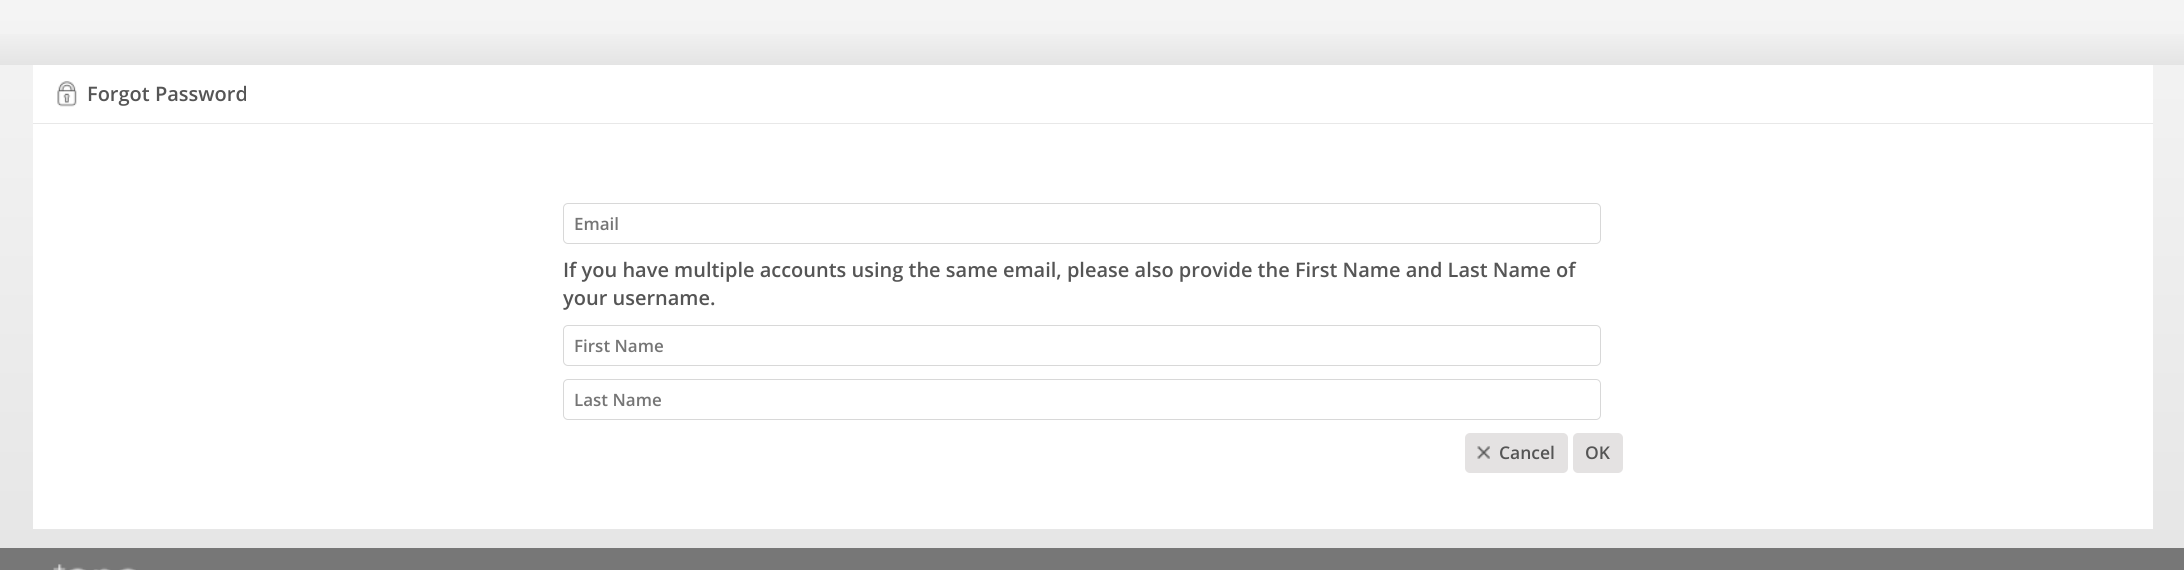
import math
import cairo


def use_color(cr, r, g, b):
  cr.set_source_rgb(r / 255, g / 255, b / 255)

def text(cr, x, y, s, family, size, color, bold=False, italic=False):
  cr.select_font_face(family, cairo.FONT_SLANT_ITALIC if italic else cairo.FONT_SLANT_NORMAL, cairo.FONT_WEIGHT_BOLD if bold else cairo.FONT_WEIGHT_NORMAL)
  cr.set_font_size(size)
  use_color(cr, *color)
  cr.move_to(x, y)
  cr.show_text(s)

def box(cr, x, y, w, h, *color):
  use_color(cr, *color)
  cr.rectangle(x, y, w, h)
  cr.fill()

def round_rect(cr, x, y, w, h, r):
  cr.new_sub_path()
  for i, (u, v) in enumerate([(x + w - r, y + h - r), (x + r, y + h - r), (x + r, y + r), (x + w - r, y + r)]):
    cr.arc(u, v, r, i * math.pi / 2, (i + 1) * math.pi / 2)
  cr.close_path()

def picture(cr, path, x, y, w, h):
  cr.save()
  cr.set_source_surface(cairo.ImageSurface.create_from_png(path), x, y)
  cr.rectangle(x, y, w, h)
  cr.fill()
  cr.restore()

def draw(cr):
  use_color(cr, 255, 255, 255)
  cr.paint()
  gradient = cairo.LinearGradient(1093, 0, 1093, 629)
  gradient.add_color_stop_rgba(0, 0.957, 0.957, 0.957, 1)
  gradient.add_color_stop_rgba(1, 0.894, 0.894, 0.894, 1)
  cr.set_source(gradient)
  cr.rectangle(0, 0, 2184, 548)
  cr.fill()
  gradient = cairo.LinearGradient(1093, 25, 1093, 65)
  gradient.add_color_stop_rgba(0, 0.957, 0.957, 0.957, 1)
  gradient.add_color_stop_rgba(1, 0.894, 0.894, 0.894, 1)
  cr.set_source(gradient)
  cr.rectangle(0, 34, 2184, 31)
  cr.fill()
  box(cr, 33, 65, 2120, 464, 255, 255, 255)
  box(cr, 33, 123, 2120, 1, 232, 232, 232)
  picture(cr, "img_01.png", 57, 81, 20, 26)
  round_rect(cr, 563.5, 203.5, 1037, 40, 4.5)
  use_color(cr, 216, 216, 216)
  cr.set_line_width(1)
  cr.stroke()
  round_rect(cr, 563.5, 325.5, 1037, 40, 4.5)
  cr.stroke()
  round_rect(cr, 563.5, 379.5, 1037, 40, 4.5)
  cr.stroke()
  use_color(cr, 228, 226, 226)
  round_rect(cr, 1465, 433, 103, 40, 5)
  cr.fill()
  picture(cr, "img_02.png", 1477, 446, 13, 13)
  round_rect(cr, 1573, 433, 50, 40, 5)
  cr.fill()
  box(cr, 0, 548, 2184, 22, 119, 119, 119)
  picture(cr, "img_03.png", 53, 564, 83, 6)
  text(cr, 87, 101, "Forgot Password", "Open Sans SemiBold", 20, (85, 85, 85))
  text(cr, 574, 230, "Email", "Open Sans SemiBold", 17, (117, 117, 117))
  text(cr, 563, 277, "If you have multiple accounts using the same email, please also provide the First Name and Last Name of", "Open Sans SemiBold", 20, (85, 85, 85))
  text(cr, 563, 305, "your username.", "Open Sans SemiBold", 20, (85, 85, 85))
  text(cr, 574, 352, "First Name", "Open Sans SemiBold", 17, (117, 117, 117))
  text(cr, 574, 406, "Last Name", "Open Sans SemiBold", 17, (117, 117, 117))
  text(cr, 1499, 459, "Cancel", "Open Sans SemiBold", 17.5, (85, 85, 85))
  text(cr, 1585, 459, "OK", "Open Sans SemiBold", 17.5, (85, 85, 85))


surface = cairo.ImageSurface(cairo.FORMAT_RGB24, 2184, 570)
cr = cairo.Context(surface)
options = cairo.FontOptions()
options.set_hint_metrics(cairo.HINT_METRICS_OFF)
options.set_hint_style(cairo.HINT_STYLE_NONE)
cr.set_font_options(options)
cr.set_miter_limit(4)
draw(cr)
surface.write_to_png("out.png")
